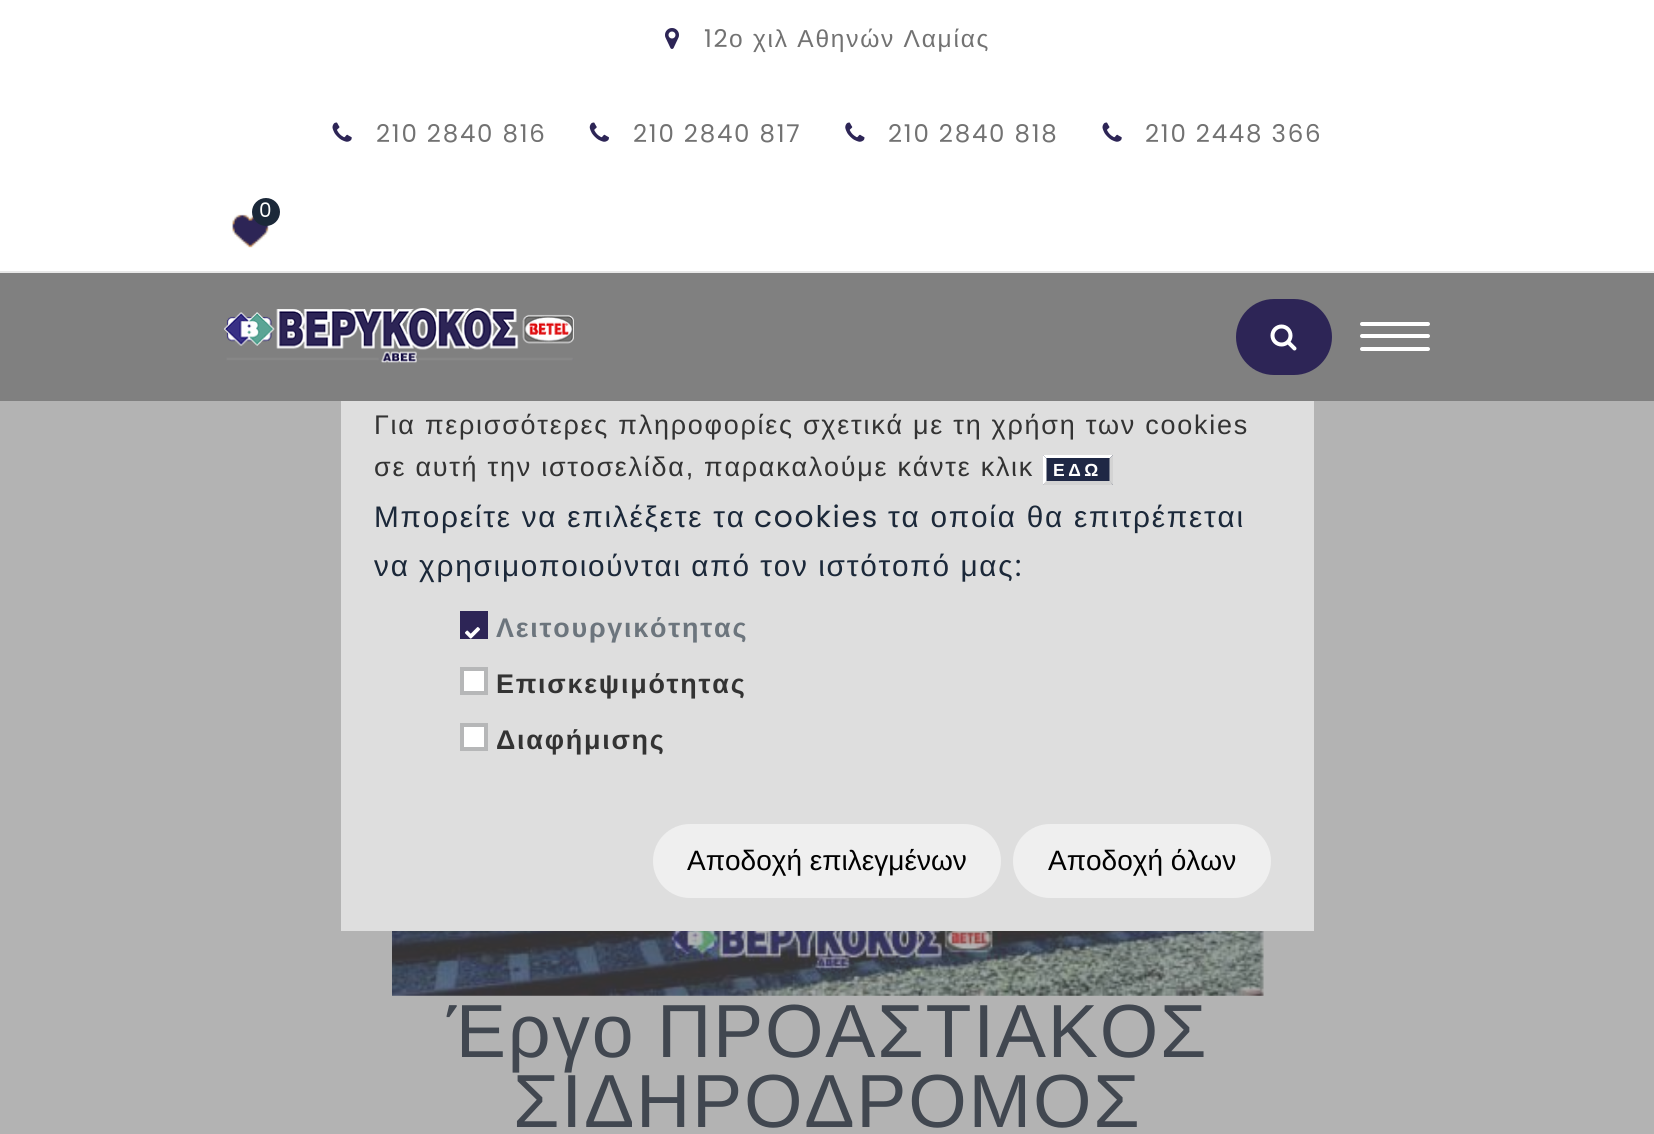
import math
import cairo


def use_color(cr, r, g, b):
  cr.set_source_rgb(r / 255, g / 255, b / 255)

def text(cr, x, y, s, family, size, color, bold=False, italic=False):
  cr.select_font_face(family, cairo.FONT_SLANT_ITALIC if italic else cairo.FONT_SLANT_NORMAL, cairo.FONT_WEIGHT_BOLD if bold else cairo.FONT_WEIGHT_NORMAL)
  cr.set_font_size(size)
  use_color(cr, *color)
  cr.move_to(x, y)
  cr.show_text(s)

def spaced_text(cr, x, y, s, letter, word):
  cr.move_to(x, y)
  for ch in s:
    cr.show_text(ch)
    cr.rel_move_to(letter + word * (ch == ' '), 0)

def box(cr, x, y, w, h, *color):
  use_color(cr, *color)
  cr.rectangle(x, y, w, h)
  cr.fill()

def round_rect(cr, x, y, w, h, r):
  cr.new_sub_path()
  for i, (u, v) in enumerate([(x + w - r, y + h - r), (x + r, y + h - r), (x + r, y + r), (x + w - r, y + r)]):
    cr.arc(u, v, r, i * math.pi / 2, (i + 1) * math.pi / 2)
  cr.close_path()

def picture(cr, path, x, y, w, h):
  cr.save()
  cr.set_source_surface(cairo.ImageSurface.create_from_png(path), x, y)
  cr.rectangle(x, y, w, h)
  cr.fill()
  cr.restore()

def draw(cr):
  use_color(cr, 179, 179, 179)
  cr.paint()
  box(cr, 0, 0, 1654, 271, 255, 255, 255)
  box(cr, 0, 271, 1654, 2, 232, 232, 232)
  picture(cr, "img_01.png", 665, 28, 14, 21)
  picture(cr, "img_02.png", 332, 122, 20, 20)
  picture(cr, "img_03.png", 589, 122, 20, 20)
  picture(cr, "img_04.png", 845, 122, 20, 20)
  picture(cr, "img_02.png", 1102, 122, 20, 20)
  picture(cr, "img_05.png", 232, 214, 37, 34)
  use_color(cr, 27, 40, 57)
  cr.arc(266, 212, 14, 0, 2 * math.pi)
  cr.fill()
  box(cr, 0, 273, 1654, 128, 128, 128, 128)
  picture(cr, "img_06.png", 224, 308, 350, 55)
  use_color(cr, 45, 37, 86)
  round_rect(cr, 1236, 299, 96, 76, 38)
  cr.fill()
  picture(cr, "img_07.png", 1270, 324, 27, 27)
  use_color(cr, 255, 255, 255)
  round_rect(cr, 1360, 322, 70, 4, 2)
  cr.fill()
  round_rect(cr, 1360, 334, 70, 4, 2)
  cr.fill()
  round_rect(cr, 1360, 347, 70, 4, 2)
  cr.fill()
  picture(cr, "img_08.png", 392, 931, 872, 65)
  box(cr, 341, 401, 973, 530, 222, 222, 222)
  box(cr, 1043, 455, 70, 30, 31, 40, 69)
  use_color(cr, 255, 255, 255)
  cr.new_path()
  cr.move_to(1043, 455)
  cr.line_to(1113, 455)
  cr.line_to(1110, 458)
  cr.line_to(1046, 458)
  cr.close_path()
  cr.fill()
  use_color(cr, 211, 211, 211)
  cr.new_path()
  cr.move_to(1113, 455)
  cr.line_to(1113, 485)
  cr.line_to(1109.5, 481)
  cr.line_to(1109.5, 458.5)
  cr.close_path()
  cr.fill()
  cr.new_path()
  cr.move_to(1113, 485)
  cr.line_to(1043, 485)
  cr.line_to(1046, 481)
  cr.line_to(1110, 481)
  cr.close_path()
  cr.fill()
  use_color(cr, 255, 255, 255)
  cr.new_path()
  cr.move_to(1043, 485)
  cr.line_to(1043, 455)
  cr.line_to(1046.5, 458.5)
  cr.line_to(1046.5, 481)
  cr.close_path()
  cr.fill()
  box(cr, 460, 611, 28, 28, 45, 37, 86)
  picture(cr, "img_09.png", 465, 627, 15, 12)
  use_color(cr, 255, 255, 255)
  cr.rectangle(462, 669, 24, 24)
  cr.fill_preserve()
  use_color(cr, 182, 183, 184)
  cr.set_line_width(4)
  cr.stroke()
  use_color(cr, 255, 255, 255)
  cr.rectangle(462, 725, 24, 24)
  cr.fill_preserve()
  use_color(cr, 182, 183, 184)
  cr.stroke()
  use_color(cr, 239, 239, 239)
  round_rect(cr, 653, 824, 348, 74, 37)
  cr.fill()
  round_rect(cr, 1013, 824, 258, 74, 37)
  cr.fill()
  cr.select_font_face("Poppins")
  cr.set_font_size(24.5)
  use_color(cr, 114, 114, 114)
  spaced_text(cr, 704, 47, "12", 1.75, 0)
  cr.select_font_face("Liberation Sans")
  spaced_text(cr, 729, 47, "ο χιλ Αθηνών Λαμίας", 1.75, 0)
  cr.select_font_face("Poppins")
  spaced_text(cr, 376, 142, "210 2840 816", 1.75, 0)
  spaced_text(cr, 633, 142, "210 2840 817", 1.75, 0)
  spaced_text(cr, 888, 142, "210 2840 818", 1.75, 0)
  spaced_text(cr, 1145, 142, "210 2448 366", 1.75, 0)
  cr.set_font_size(20)
  use_color(cr, 255, 255, 255)
  spaced_text(cr, 259, 217, "0", 1.75, 0)
  cr.select_font_face("Liberation Sans")
  cr.set_font_size(75.25)
  use_color(cr, 65, 71, 80)
  spaced_text(cr, 447, 1057, "Έργο ΠΡΟΑΣΤΙΑΚΟΣ", 1.75, -1)
  spaced_text(cr, 513, 1127, "ΣΙΔΗΡΟΔΡΟΜΟΣ", 1.75, 0)
  cr.set_font_size(26.95)
  use_color(cr, 51, 51, 51)
  spaced_text(cr, 374, 434, "Για περισσότερες πληροφορίες σχετικά με τη χρήση των cookies", 1.75, 0)
  spaced_text(cr, 374, 476, "σε αυτή την ιστοσελίδα, παρακαλούμε κάντε κλικ", 1.75, 0)
  cr.select_font_face("Liberation Sans", cairo.FONT_SLANT_NORMAL, cairo.FONT_WEIGHT_BOLD)
  cr.set_font_size(17.5)
  use_color(cr, 255, 255, 255)
  spaced_text(cr, 1053, 476, "ΕΔΩ", 3.5, 0)
  cr.select_font_face("Liberation Sans")
  cr.set_font_size(29.75)
  use_color(cr, 27, 40, 57)
  spaced_text(cr, 374, 527, "Μπορείτε να επιλέξετε τα", 1.75, 0)
  cr.select_font_face("Poppins")
  spaced_text(cr, 754, 527, "cookies", 1.75, 0)
  cr.select_font_face("Liberation Sans")
  spaced_text(cr, 888, 527, "τα οποία θα επιτρέπεται", 1.75, 0)
  spaced_text(cr, 374, 576, "να χρησιμοποιούνται από τον ιστότοπό μας", 1.75, -0.5)
  cr.select_font_face("Poppins")
  spaced_text(cr, 1015, 576, ":", 1.75, 0)
  cr.select_font_face("Liberation Sans", cairo.FONT_SLANT_NORMAL, cairo.FONT_WEIGHT_BOLD)
  cr.set_font_size(26.95)
  use_color(cr, 108, 117, 125)
  spaced_text(cr, 496, 637, "Λειτουργικότητας", 1.75, 0)
  use_color(cr, 51, 51, 51)
  spaced_text(cr, 496, 693, "Επισκεψιμότητας", 1.75, 0)
  spaced_text(cr, 496, 749, "Διαφήμισης", 1.75, 0)
  text(cr, 687, 870, "Αποδοχή επιλεγμένων", "Liberation Sans", 28, (0, 0, 0))
  text(cr, 1048, 870, "Αποδοχή όλων", "Liberation Sans", 28, (0, 0, 0))


surface = cairo.ImageSurface(cairo.FORMAT_RGB24, 1654, 1134)
cr = cairo.Context(surface)
options = cairo.FontOptions()
options.set_hint_metrics(cairo.HINT_METRICS_OFF)
options.set_hint_style(cairo.HINT_STYLE_NONE)
cr.set_font_options(options)
cr.set_miter_limit(4)
draw(cr)
surface.write_to_png("out.png")
